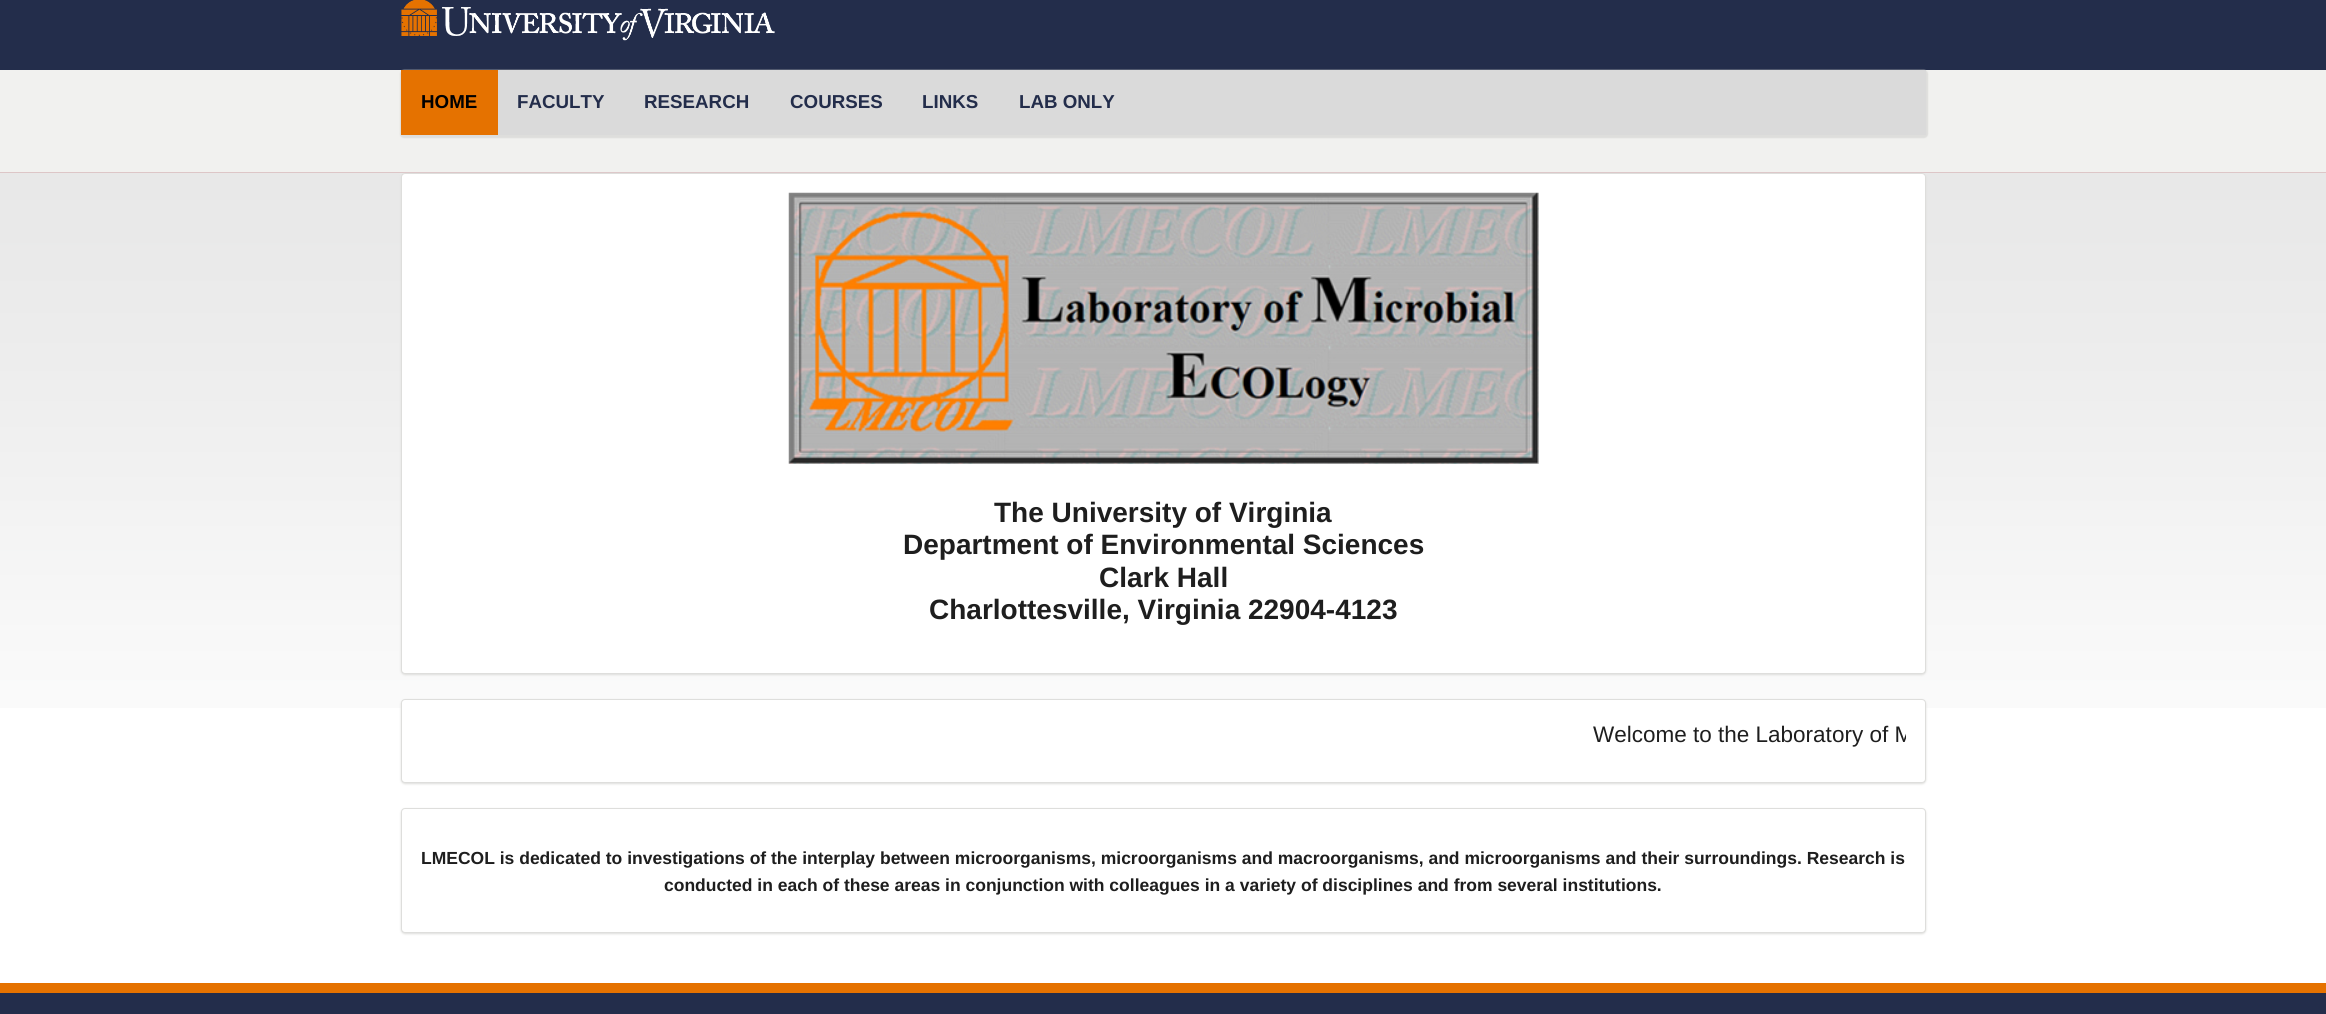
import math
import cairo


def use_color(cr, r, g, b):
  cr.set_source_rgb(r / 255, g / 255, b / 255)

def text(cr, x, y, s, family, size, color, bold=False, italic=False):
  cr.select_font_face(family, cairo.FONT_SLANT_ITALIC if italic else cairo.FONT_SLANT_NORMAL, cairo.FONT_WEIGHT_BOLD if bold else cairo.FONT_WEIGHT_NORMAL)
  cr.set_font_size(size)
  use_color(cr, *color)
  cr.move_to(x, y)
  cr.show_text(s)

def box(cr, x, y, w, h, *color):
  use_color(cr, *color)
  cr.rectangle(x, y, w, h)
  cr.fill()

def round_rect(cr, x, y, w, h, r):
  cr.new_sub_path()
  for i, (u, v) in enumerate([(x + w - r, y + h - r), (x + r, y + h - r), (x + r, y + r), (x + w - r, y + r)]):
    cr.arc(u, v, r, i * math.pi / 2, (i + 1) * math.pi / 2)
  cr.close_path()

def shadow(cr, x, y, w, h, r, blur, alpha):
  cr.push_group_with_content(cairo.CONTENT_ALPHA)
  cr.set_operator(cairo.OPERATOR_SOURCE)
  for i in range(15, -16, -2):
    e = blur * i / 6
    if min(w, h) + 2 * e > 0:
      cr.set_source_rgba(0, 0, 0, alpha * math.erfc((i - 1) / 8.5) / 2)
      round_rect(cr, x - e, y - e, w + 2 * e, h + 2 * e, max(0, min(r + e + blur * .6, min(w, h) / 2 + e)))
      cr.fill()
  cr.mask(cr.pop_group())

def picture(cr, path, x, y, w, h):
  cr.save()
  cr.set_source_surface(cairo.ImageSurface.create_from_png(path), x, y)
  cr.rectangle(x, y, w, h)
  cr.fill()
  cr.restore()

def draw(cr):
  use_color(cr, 255, 255, 255)
  cr.paint()
  box(cr, 0, 70, 2326, 103, 241, 241, 239)
  box(cr, 0, 0, 2326, 70, 35, 45, 75)
  picture(cr, "img_01.png", 401, 0, 374, 41)
  use_color(cr, 222, 222, 220)
  shadow(cr, 400, 70, 1528, 68, 4, 0.5, 1)
  box(cr, 498, 70, 1428, 65, 218, 218, 218)
  box(cr, 401, 70, 97, 65, 229, 114, 0)
  picture(cr, "img_02.png", 0, 172, 2326, 536)
  use_color(cr, 222, 222, 220)
  shadow(cr, 401, 174, 1525, 501, 4, 1, 1)
  use_color(cr, 255, 255, 255)
  round_rect(cr, 401.5, 173.5, 1524, 500, 3.5)
  cr.fill_preserve()
  use_color(cr, 222, 222, 220)
  cr.set_line_width(1)
  cr.stroke()
  picture(cr, "img_03.png", 788, 192, 751, 272)
  use_color(cr, 222, 222, 220)
  shadow(cr, 401, 700, 1525, 84, 4, 1, 1)
  use_color(cr, 255, 255, 255)
  round_rect(cr, 401.5, 699.5, 1524, 83, 3.5)
  cr.fill_preserve()
  use_color(cr, 222, 222, 220)
  cr.stroke()
  use_color(cr, 222, 222, 220)
  shadow(cr, 401, 809, 1525, 125, 4, 1, 1)
  use_color(cr, 255, 255, 255)
  round_rect(cr, 401.5, 808.5, 1524, 124, 3.5)
  cr.fill_preserve()
  use_color(cr, 222, 222, 220)
  cr.stroke()
  box(cr, 0, 993, 2326, 21, 35, 45, 75)
  box(cr, 0, 983, 2326, 10, 229, 114, 0)
  text(cr, 421, 108, "HOME", "Liberation Sans", 18.75, (0, 0, 0), bold=True)
  text(cr, 517, 108, "FACULTY", "Liberation Sans", 18.75, (35, 45, 75), bold=True)
  text(cr, 644, 108, "RESEARCH", "Liberation Sans", 18.75, (35, 45, 75), bold=True)
  text(cr, 790, 108, "COURSES", "Liberation Sans", 18.75, (35, 45, 75), bold=True)
  text(cr, 922, 108, "LINKS", "Liberation Sans", 18.75, (35, 45, 75), bold=True)
  text(cr, 1019, 108, "LAB ONLY", "Liberation Sans", 18.75, (35, 45, 75), bold=True)
  text(cr, 994, 522, "The University of Virginia", "Liberation Sans", 28, (30, 30, 30), bold=True)
  text(cr, 903, 554, "Department of Environmental Sciences", "Liberation Sans", 28, (30, 30, 30), bold=True)
  text(cr, 1099, 587, "Clark Hall", "Liberation Sans", 28, (30, 30, 30), bold=True)
  text(cr, 929, 619, "Charlottesville, Virginia 22904-4123", "Liberation Sans", 28, (30, 30, 30), bold=True)
  cr.save()
  cr.rectangle(421, 719, 1485, 34)
  cr.clip()
  text(cr, 1593, 742, "Welcome to the Laboratory of M", "Liberation Sans", 22.5, (30, 30, 30))
  cr.restore()
  text(cr, 421, 864, "LMECOL is dedicated to investigations of the interplay between microorganisms, microorganisms and macroorganisms, and microorganisms and their surroundings. Research is", "Liberation Sans", 17.5, (30, 30, 30), bold=True)
  text(cr, 664, 891, "conducted in each of these areas in conjunction with colleagues in a variety of disciplines and from several institutions.", "Liberation Sans", 17.5, (30, 30, 30), bold=True)


surface = cairo.ImageSurface(cairo.FORMAT_RGB24, 2326, 1014)
cr = cairo.Context(surface)
options = cairo.FontOptions()
options.set_hint_metrics(cairo.HINT_METRICS_OFF)
options.set_hint_style(cairo.HINT_STYLE_NONE)
cr.set_font_options(options)
cr.set_miter_limit(4)
draw(cr)
surface.write_to_png("out.png")
